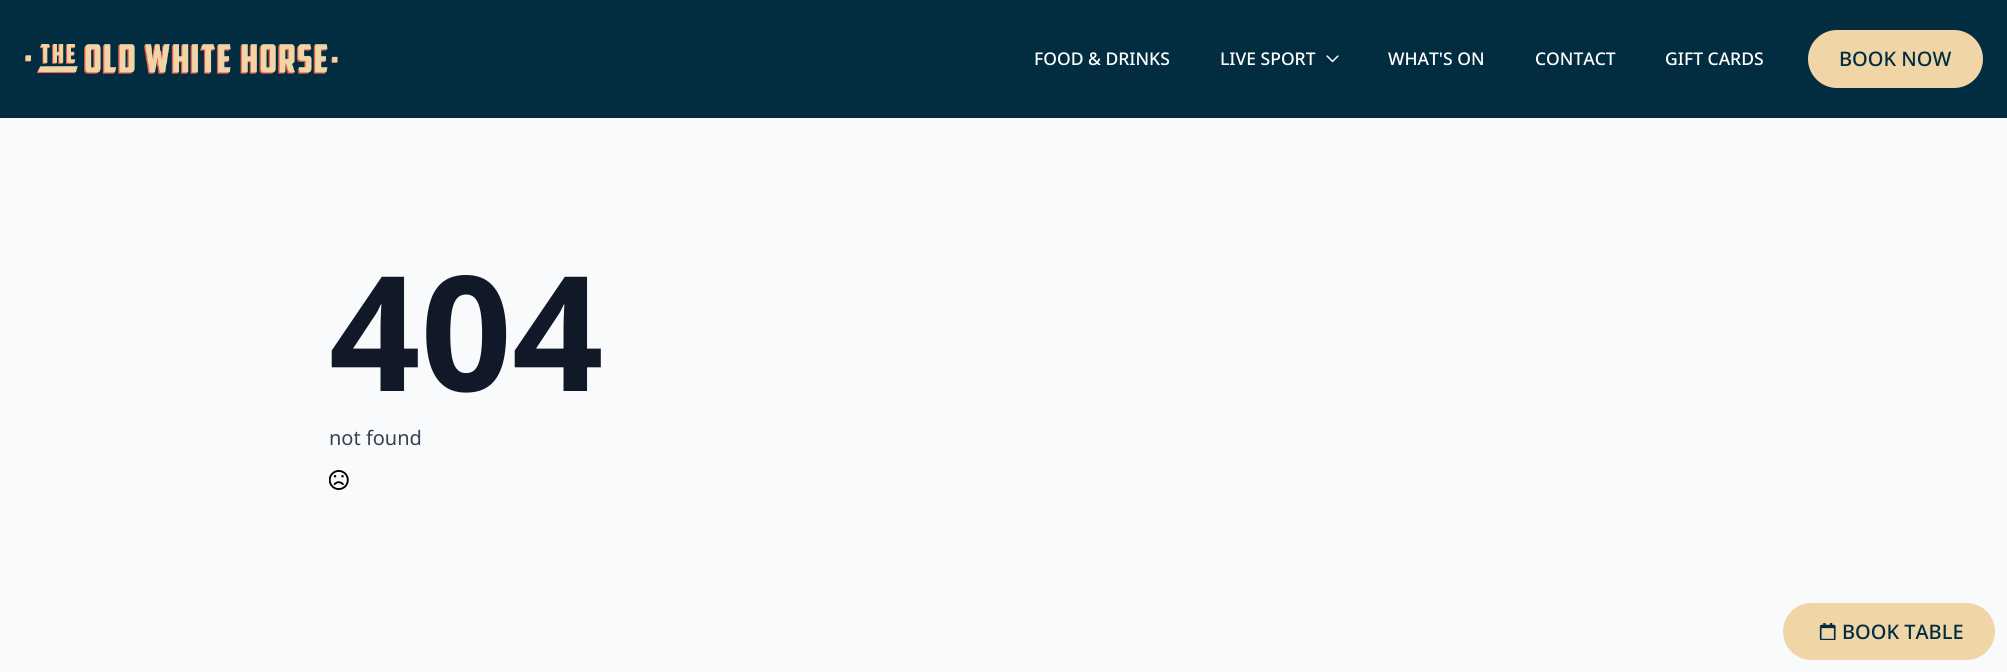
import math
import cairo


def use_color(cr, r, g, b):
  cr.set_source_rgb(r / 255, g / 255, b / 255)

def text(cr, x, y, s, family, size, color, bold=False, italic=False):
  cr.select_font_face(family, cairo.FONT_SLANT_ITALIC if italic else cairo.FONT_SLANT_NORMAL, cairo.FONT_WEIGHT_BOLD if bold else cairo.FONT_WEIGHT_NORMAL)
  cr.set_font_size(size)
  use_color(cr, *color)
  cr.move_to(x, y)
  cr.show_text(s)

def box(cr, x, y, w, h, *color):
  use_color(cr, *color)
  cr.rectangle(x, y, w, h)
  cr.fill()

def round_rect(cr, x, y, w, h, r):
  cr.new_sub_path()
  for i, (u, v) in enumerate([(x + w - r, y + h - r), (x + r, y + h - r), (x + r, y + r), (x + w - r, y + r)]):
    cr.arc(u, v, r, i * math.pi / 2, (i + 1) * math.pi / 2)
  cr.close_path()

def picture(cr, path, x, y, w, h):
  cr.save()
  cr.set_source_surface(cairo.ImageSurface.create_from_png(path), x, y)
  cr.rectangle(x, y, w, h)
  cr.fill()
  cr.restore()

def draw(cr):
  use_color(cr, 249, 250, 251)
  cr.paint()
  picture(cr, "img_01.png", 329, 470, 20, 20)
  box(cr, 0, 0, 2007, 118, 2, 45, 64)
  picture(cr, "img_02.png", 25, 44, 313, 30)
  picture(cr, "img_03.png", 1326, 55, 13, 8)
  use_color(cr, 240, 213, 167)
  round_rect(cr, 1808, 30, 175, 58, 29)
  cr.fill()
  round_rect(cr, 1783, 603, 212, 57, 28.5)
  cr.fill()
  picture(cr, "img_04.png", 1819, 623, 17, 17)
  text(cr, 329, 391, "404", "Noto Sans", 160, (17, 24, 39), bold=True)
  text(cr, 329, 445, "not found", "Noto Sans", 20, (55, 65, 81))
  text(cr, 1034, 65, "FOOD & DRINKS", "Noto Sans Medium", 17.5, (255, 255, 255))
  text(cr, 1220, 65, "LIVE SPORT", "Noto Sans Medium", 17.5, (255, 255, 255))
  text(cr, 1388, 65, "WHAT'S ON", "Noto Sans Medium", 17.5, (255, 255, 255))
  text(cr, 1535, 65, "CONTACT", "Noto Sans Medium", 17.5, (255, 255, 255))
  text(cr, 1665, 65, "GIFT CARDS", "Noto Sans Medium", 17.5, (255, 255, 255))
  text(cr, 1839, 66, "BOOK NOW", "Noto Sans Medium", 20, (2, 45, 64))
  text(cr, 1842, 639, "BOOK TABLE", "Noto Sans Medium", 20, (2, 45, 64))


surface = cairo.ImageSurface(cairo.FORMAT_RGB24, 2007, 672)
cr = cairo.Context(surface)
options = cairo.FontOptions()
options.set_hint_metrics(cairo.HINT_METRICS_OFF)
options.set_hint_style(cairo.HINT_STYLE_NONE)
cr.set_font_options(options)
cr.set_miter_limit(4)
draw(cr)
surface.write_to_png("out.png")
